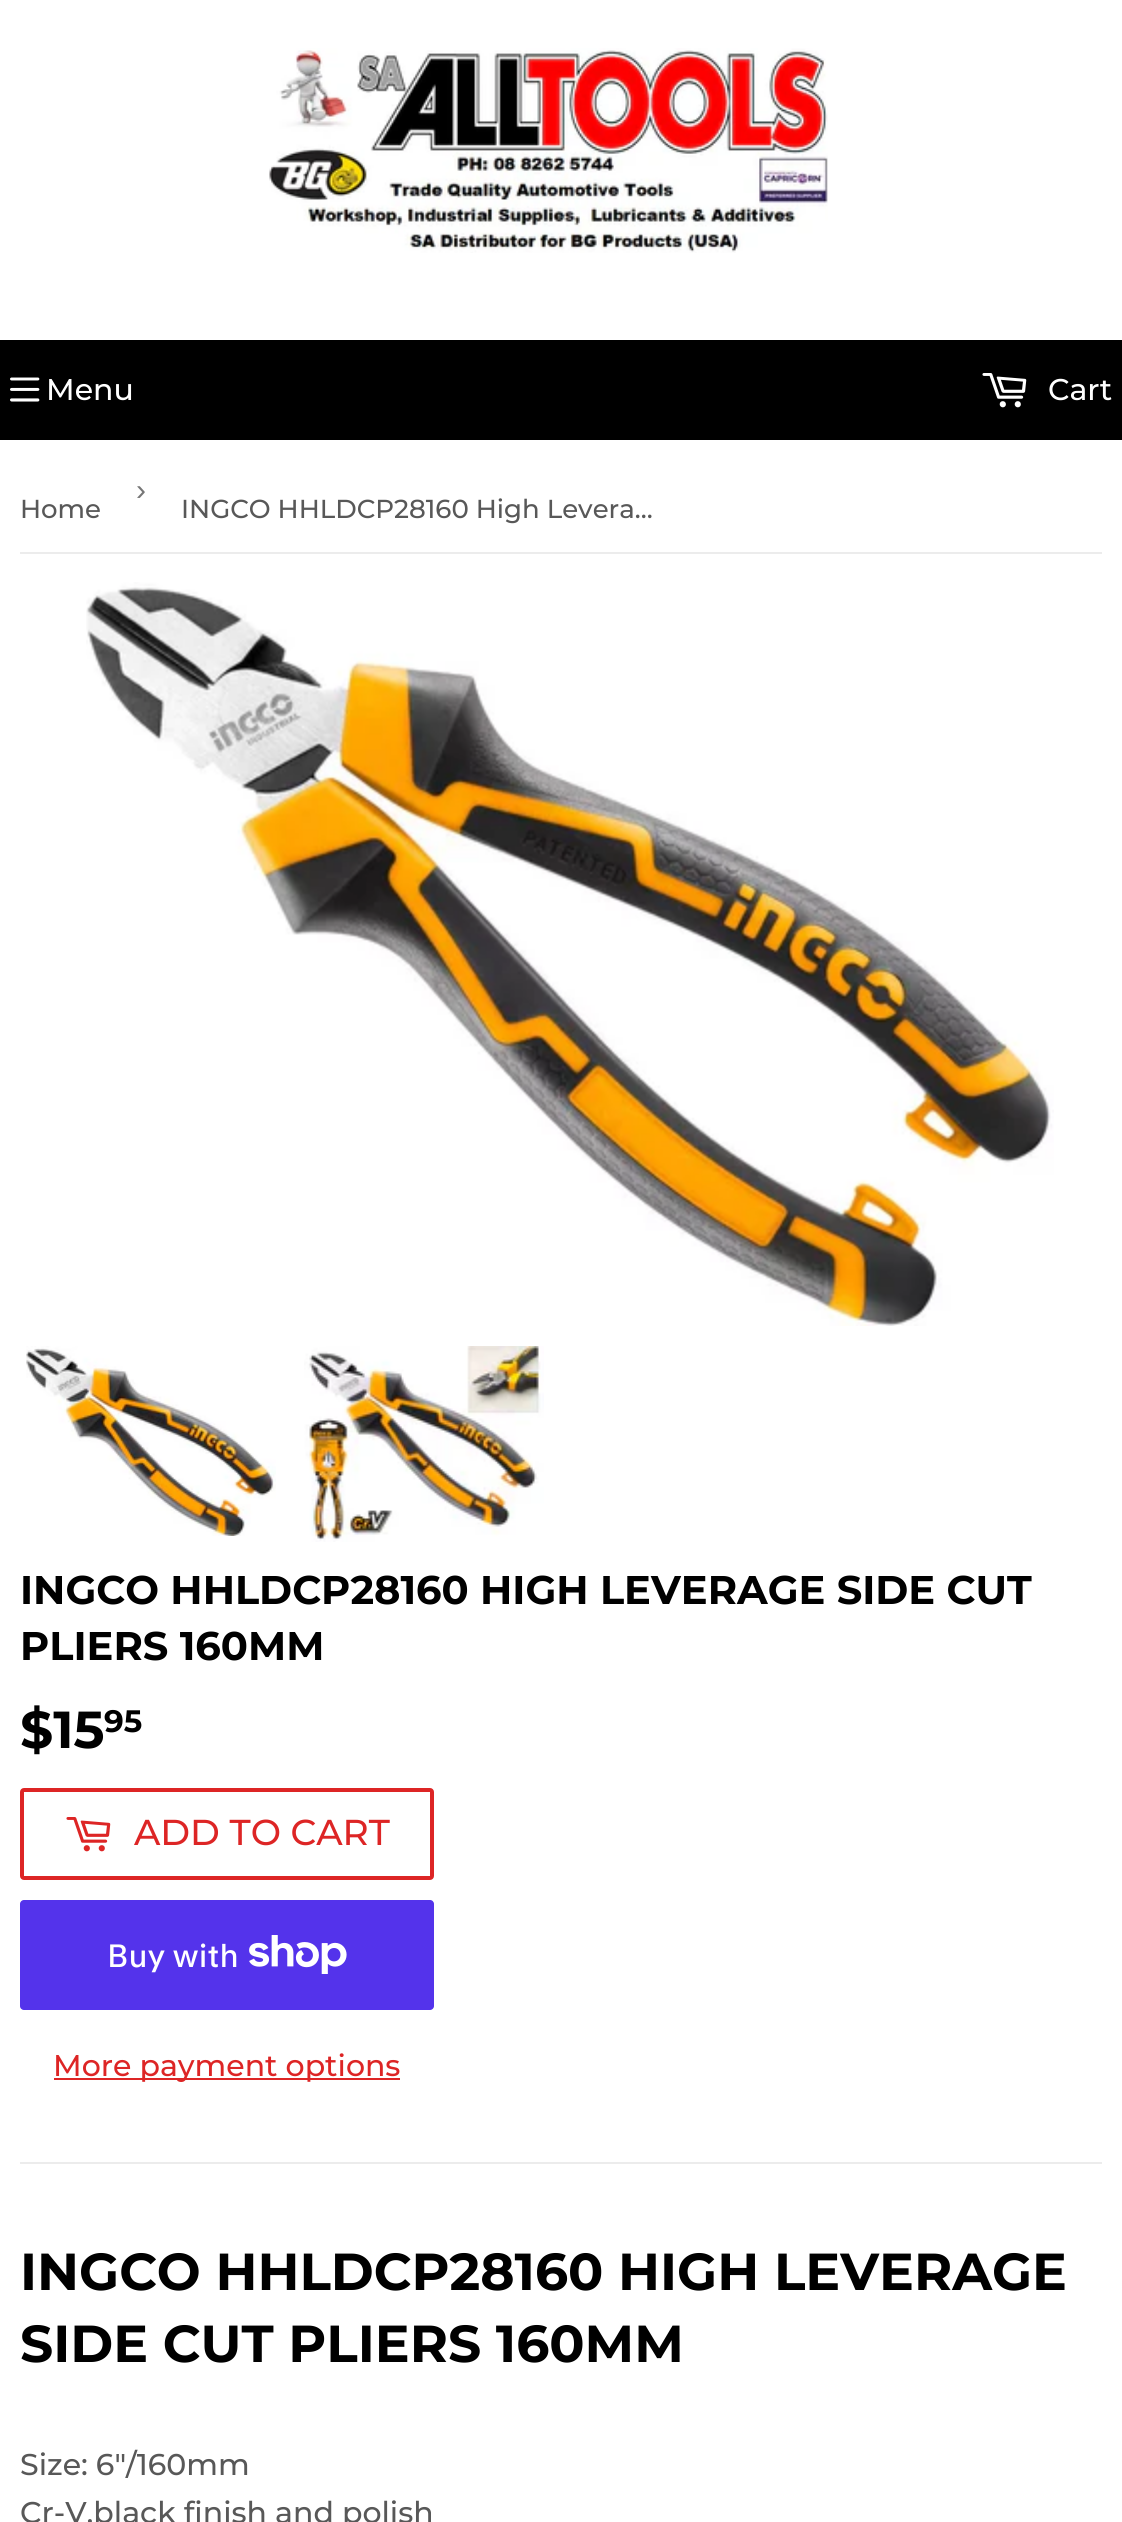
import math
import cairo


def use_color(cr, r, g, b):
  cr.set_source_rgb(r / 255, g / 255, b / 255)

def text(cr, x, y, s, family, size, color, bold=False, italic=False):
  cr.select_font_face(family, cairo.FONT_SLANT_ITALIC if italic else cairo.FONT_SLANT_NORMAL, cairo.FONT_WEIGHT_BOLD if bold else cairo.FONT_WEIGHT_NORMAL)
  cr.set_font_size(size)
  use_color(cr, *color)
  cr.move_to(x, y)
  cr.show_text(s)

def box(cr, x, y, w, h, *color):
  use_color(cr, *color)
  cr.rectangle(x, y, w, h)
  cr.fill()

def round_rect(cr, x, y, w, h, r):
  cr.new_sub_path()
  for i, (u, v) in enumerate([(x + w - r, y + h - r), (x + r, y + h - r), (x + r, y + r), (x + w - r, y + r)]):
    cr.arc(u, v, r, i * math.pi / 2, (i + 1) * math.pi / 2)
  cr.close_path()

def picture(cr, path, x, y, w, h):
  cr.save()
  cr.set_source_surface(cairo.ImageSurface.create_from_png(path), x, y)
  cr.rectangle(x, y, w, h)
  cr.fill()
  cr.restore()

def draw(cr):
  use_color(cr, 255, 255, 255)
  cr.paint()
  picture(cr, "img_01.png", 269, 48, 559, 205)
  box(cr, 0, 340, 1122, 100, 0, 0, 0)
  picture(cr, "img_02.png", 10, 377, 30, 25)
  picture(cr, "img_03.png", 982, 373, 45, 35)
  box(cr, 20, 552, 1082, 2, 236, 236, 236)
  picture(cr, "img_04.png", 86, 582, 968, 744)
  picture(cr, "img_05.png", 26, 1346, 250, 190)
  picture(cr, "img_06.png", 304, 1346, 240, 196)
  round_rect(cr, 22, 1790, 410, 88, 2)
  use_color(cr, 221, 37, 37)
  cr.set_line_width(4)
  cr.stroke()
  picture(cr, "img_07.png", 66, 1817, 45, 35)
  use_color(cr, 84, 51, 235)
  round_rect(cr, 20, 1900, 414, 110, 4)
  cr.fill()
  picture(cr, "img_08.png", 249, 1935, 98, 39)
  box(cr, 54, 2078, 346, 2, 221, 37, 37)
  box(cr, 20, 2162, 1082, 2, 236, 236, 236)
  text(cr, 46, 400, "Menu", "Montserrat Medium", 30, (255, 255, 255))
  text(cr, 1048, 400, "Cart", "Montserrat Medium", 30, (255, 255, 255))
  text(cr, 136, 500, "›", "Liberation Sans", 30, (118, 118, 118))
  text(cr, 20, 518, "Home", "Montserrat Medium", 26, (88, 88, 88))
  text(cr, 181, 518, "INGCO HHLDCP28160 High Levera…", "Montserrat Medium", 26, (88, 88, 88))
  text(cr, 20, 1604, "INGCO HHLDCP28160 HIGH LEVERAGE SIDE CUT", "Montserrat", 40, (0, 0, 0), bold=True)
  text(cr, 20, 1660, "PLIERS 160MM", "Montserrat", 40, (0, 0, 0), bold=True)
  text(cr, 20, 1748, "$15", "Montserrat", 52, (0, 0, 0), bold=True)
  text(cr, 104, 1732, "95", "Montserrat", 31, (0, 0, 0), bold=True)
  text(cr, 134, 1845, "ADD TO CART", "Montserrat Medium", 36, (221, 37, 37))
  text(cr, 107, 1967, "Buy with", "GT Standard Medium", 32, (255, 255, 255))
  text(cr, 53, 2076, "More payment options", "Montserrat Medium", 30, (221, 37, 37))
  text(cr, 20, 2290, "INGCO HHLDCP28160 HIGH LEVERAGE", "Montserrat", 52, (0, 0, 0), bold=True)
  text(cr, 20, 2362, "SIDE CUT PLIERS 160MM", "Montserrat", 52, (0, 0, 0), bold=True)
  text(cr, 20, 2475, "Size: 6\"/160mm", "Montserrat Medium", 30, (88, 88, 88))
  text(cr, 20, 2523, "Cr-V,black finish and polish", "Montserrat Medium", 30, (88, 88, 88))


surface = cairo.ImageSurface(cairo.FORMAT_RGB24, 1122, 2522)
cr = cairo.Context(surface)
options = cairo.FontOptions()
options.set_hint_metrics(cairo.HINT_METRICS_OFF)
options.set_hint_style(cairo.HINT_STYLE_NONE)
cr.set_font_options(options)
cr.set_miter_limit(4)
draw(cr)
surface.write_to_png("out.png")
